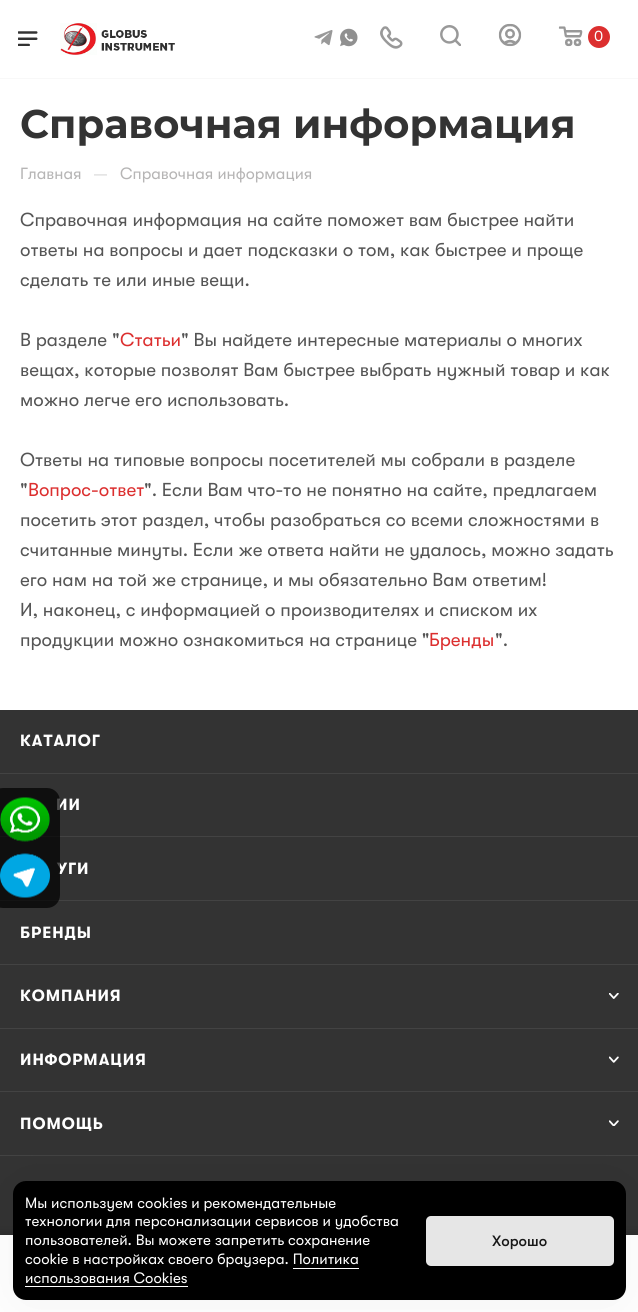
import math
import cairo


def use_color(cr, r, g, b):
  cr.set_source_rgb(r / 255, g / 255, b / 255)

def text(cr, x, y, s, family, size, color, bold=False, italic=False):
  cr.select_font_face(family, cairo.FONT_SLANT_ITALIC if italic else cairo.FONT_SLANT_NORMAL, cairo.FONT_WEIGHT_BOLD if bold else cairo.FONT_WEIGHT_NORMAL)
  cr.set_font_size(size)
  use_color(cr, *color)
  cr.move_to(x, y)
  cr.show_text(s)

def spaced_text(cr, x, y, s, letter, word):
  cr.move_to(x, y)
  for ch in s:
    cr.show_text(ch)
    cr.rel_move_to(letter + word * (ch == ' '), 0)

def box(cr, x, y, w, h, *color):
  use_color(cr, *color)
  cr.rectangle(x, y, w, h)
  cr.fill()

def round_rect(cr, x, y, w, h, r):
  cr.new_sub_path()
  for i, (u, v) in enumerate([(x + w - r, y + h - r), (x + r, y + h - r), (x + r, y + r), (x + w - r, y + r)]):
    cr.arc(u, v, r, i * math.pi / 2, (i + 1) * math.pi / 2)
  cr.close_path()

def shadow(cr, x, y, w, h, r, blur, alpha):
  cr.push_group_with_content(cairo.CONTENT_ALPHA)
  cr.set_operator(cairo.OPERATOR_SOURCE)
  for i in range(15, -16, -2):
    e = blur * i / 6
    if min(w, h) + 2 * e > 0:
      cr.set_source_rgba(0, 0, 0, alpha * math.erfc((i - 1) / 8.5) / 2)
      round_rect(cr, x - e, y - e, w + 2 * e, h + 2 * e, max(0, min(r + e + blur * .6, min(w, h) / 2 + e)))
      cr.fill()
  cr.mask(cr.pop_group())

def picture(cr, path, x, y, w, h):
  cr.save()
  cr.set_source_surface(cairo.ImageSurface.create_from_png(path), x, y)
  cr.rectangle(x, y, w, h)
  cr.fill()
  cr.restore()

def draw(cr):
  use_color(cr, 255, 255, 255)
  cr.paint()
  box(cr, 0, 78, 638, 1, 248, 248, 248)
  picture(cr, "img_01.png", 18, 31, 20, 15)
  picture(cr, "img_02.png", 60, 23, 115, 32)
  picture(cr, "img_03.png", 314, 30, 19, 16)
  picture(cr, "img_04.png", 340, 28, 18, 19)
  picture(cr, "img_05.png", 380, 26, 23, 23)
  picture(cr, "img_06.png", 440, 25, 21, 21)
  picture(cr, "img_07.png", 498, 23, 24, 24)
  picture(cr, "img_08.png", 558, 26, 25, 21)
  use_color(cr, 220, 47, 47)
  cr.arc(599, 37, 11, 0, 2 * math.pi)
  cr.fill()
  box(cr, 0, 710, 638, 525, 51, 51, 51)
  box(cr, 0, 773, 638, 1, 67, 67, 67)
  box(cr, 0, 836, 638, 1, 67, 67, 67)
  box(cr, 0, 900, 638, 1, 67, 67, 67)
  box(cr, 0, 964, 638, 1, 67, 67, 67)
  box(cr, 0, 1028, 638, 1, 67, 67, 67)
  picture(cr, "img_09.png", 609, 993, 10, 6)
  box(cr, 0, 1091, 638, 1, 67, 67, 67)
  picture(cr, "img_10.png", 609, 1056, 10, 7)
  box(cr, 0, 1155, 638, 1, 67, 67, 67)
  picture(cr, "img_11.png", 609, 1120, 10, 6)
  use_color(cr, 0, 0, 0)
  shadow(cr, 0, 1233, 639, 77, 0, 5, 0.15)
  box(cr, 0, 1235, 638, 77, 255, 255, 255)
  use_color(cr, 0, 0, 0)
  shadow(cr, 13, 1186, 613, 119, 13, 27, 0.05)
  use_color(cr, 0, 0, 0)
  round_rect(cr, 13, 1181, 613, 119, 13)
  cr.fill()
  box(cr, 293, 1268, 66, 1, 255, 255, 255)
  box(cr, 25, 1286, 163, 1, 255, 255, 255)
  use_color(cr, 230, 230, 230)
  round_rect(cr, 426, 1216, 188, 50, 5)
  cr.fill()
  text(cr, 594, 41, "0", "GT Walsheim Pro", 15, (255, 255, 255))
  text(cr, 20, 138, "Справочная информация", "Montserrat", 40, (51, 51, 51), bold=True)
  text(cr, 20, 179, "Главная", "GT Walsheim Pro", 16.25, (182, 181, 181))
  text(cr, 93, 180, "—", "GT Walsheim Pro", 18.75, (221, 221, 221))
  text(cr, 120, 179, "Справочная информация", "GT Walsheim Pro", 16.25, (182, 181, 181))
  text(cr, 20, 226, "Справочная информация на сайте поможет вам быстрее найти", "GT Walsheim Pro", 18.75, (85, 85, 85))
  text(cr, 20, 256, "ответы на вопросы и дает подсказки о том, как быстрее и проще", "GT Walsheim Pro", 18.75, (85, 85, 85))
  text(cr, 20, 286, "сделать те или иные вещи.", "GT Walsheim Pro", 18.75, (85, 85, 85))
  text(cr, 20, 346, "В разделе \"", "GT Walsheim Pro", 18.75, (85, 85, 85))
  text(cr, 120, 346, "Статьи", "GT Walsheim Pro", 18.75, (220, 47, 47))
  text(cr, 181, 346, "\" Вы найдете интересные материалы о многих", "GT Walsheim Pro", 18.75, (85, 85, 85))
  text(cr, 20, 376, "вещах, которые позволят Вам быстрее выбрать нужный товар и как", "GT Walsheim Pro", 18.75, (85, 85, 85))
  text(cr, 20, 406, "можно легче его использовать.", "GT Walsheim Pro", 18.75, (85, 85, 85))
  text(cr, 20, 466, "Ответы на типовые вопросы посетителей мы собрали в разделе", "GT Walsheim Pro", 18.75, (85, 85, 85))
  text(cr, 20, 496, "\"", "GT Walsheim Pro", 18.75, (85, 85, 85))
  text(cr, 28, 496, "Вопрос-ответ", "GT Walsheim Pro", 18.75, (220, 47, 47))
  text(cr, 144, 496, "\". Если Вам что-то не понятно на сайте, предлагаем", "GT Walsheim Pro", 18.75, (85, 85, 85))
  text(cr, 20, 526, "посетить этот раздел, чтобы разобраться со всеми сложностями в", "GT Walsheim Pro", 18.75, (85, 85, 85))
  text(cr, 20, 556, "считанные минуты. Если же ответа найти не удалось, можно задать", "GT Walsheim Pro", 18.75, (85, 85, 85))
  text(cr, 20, 586, "его нам на той же странице, и мы обязательно Вам ответим!", "GT Walsheim Pro", 18.75, (85, 85, 85))
  text(cr, 20, 616, "И, наконец, с информацией о производителях и списком их", "GT Walsheim Pro", 18.75, (85, 85, 85))
  text(cr, 20, 646, "продукции можно ознакомиться на странице \"", "GT Walsheim Pro", 18.75, (85, 85, 85))
  text(cr, 429, 646, "Бренды", "GT Walsheim Pro", 18.75, (220, 47, 47))
  text(cr, 495, 646, "\".", "GT Walsheim Pro", 18.75, (85, 85, 85))
  cr.select_font_face("GT Walsheim Pro", cairo.FONT_SLANT_NORMAL, cairo.FONT_WEIGHT_BOLD)
  cr.set_font_size(16.25)
  use_color(cr, 255, 255, 255)
  spaced_text(cr, 20, 746, "КАТАЛОГ", 1, 0)
  spaced_text(cr, 56, 810, "ИИ", 1, 0)
  spaced_text(cr, 57, 874, "УГИ", 1, 0)
  spaced_text(cr, 20, 938, "БРЕНДЫ", 1, 0)
  spaced_text(cr, 20, 1001, "КОМПАНИЯ", 1, 0)
  spaced_text(cr, 20, 1065, "ИНФОРМАЦИЯ", 1, 0)
  spaced_text(cr, 20, 1129, "ПОМОЩЬ", 1, 0)
  cr.set_source_rgba(0, 0, 0, 0.7)
  round_rect(cr, -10, 788, 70, 120, 13)
  cr.fill()
  picture(cr, "img_12.png", 0, 797, 50, 45)
  picture(cr, "img_13.png", 0, 853, 50, 45)
  text(cr, 25, 1208, "Мы используем cookies и рекомендательные", "GT Walsheim Pro", 15, (255, 255, 255))
  text(cr, 25, 1226, "технологии для персонализации сервисов и удобства", "GT Walsheim Pro", 15, (255, 255, 255))
  text(cr, 25, 1245, "пользователей. Вы можете запретить сохранение", "GT Walsheim Pro", 15, (255, 255, 255))
  text(cr, 25, 1264, "cookie в настройках своего браузера. Политика", "GT Walsheim Pro", 15, (255, 255, 255))
  text(cr, 25, 1283, "использования Cookies", "GT Walsheim Pro", 15, (255, 255, 255))
  text(cr, 492, 1246, "Хорошо", "GT Walsheim Pro Medium", 15, (23, 23, 23))


surface = cairo.ImageSurface(cairo.FORMAT_RGB24, 638, 1312)
cr = cairo.Context(surface)
options = cairo.FontOptions()
options.set_hint_metrics(cairo.HINT_METRICS_OFF)
options.set_hint_style(cairo.HINT_STYLE_NONE)
cr.set_font_options(options)
cr.set_miter_limit(4)
draw(cr)
surface.write_to_png("out.png")
